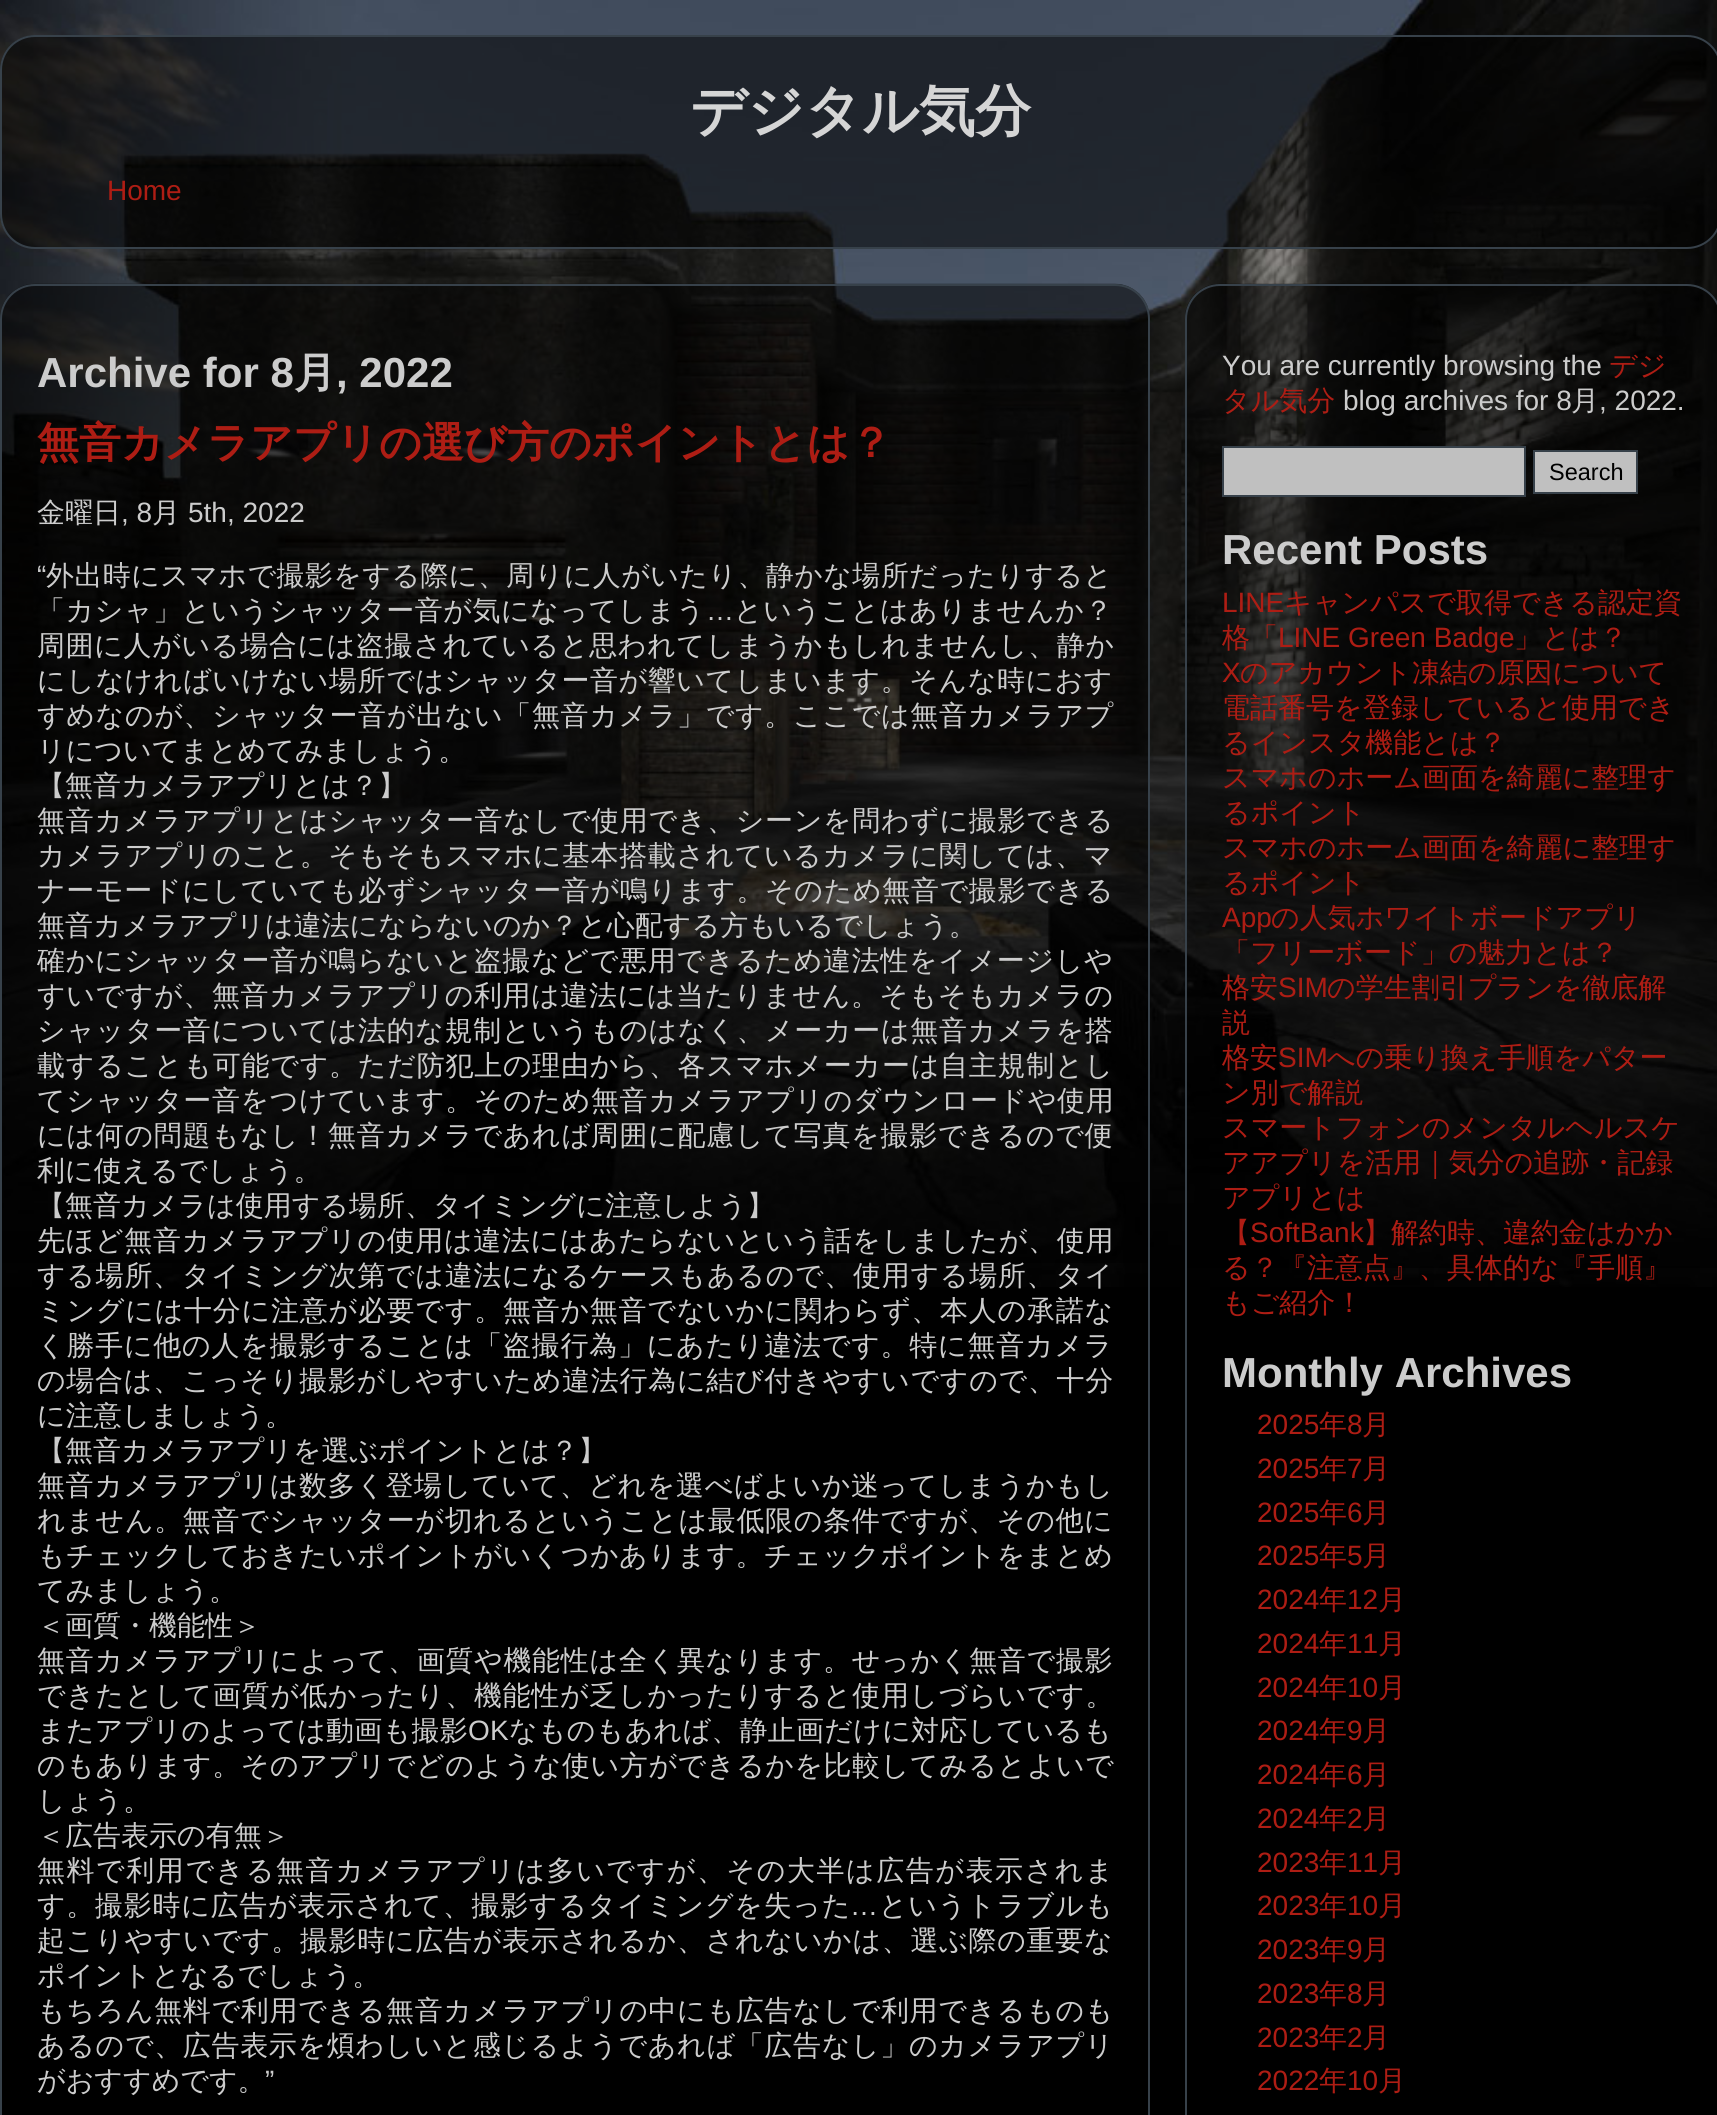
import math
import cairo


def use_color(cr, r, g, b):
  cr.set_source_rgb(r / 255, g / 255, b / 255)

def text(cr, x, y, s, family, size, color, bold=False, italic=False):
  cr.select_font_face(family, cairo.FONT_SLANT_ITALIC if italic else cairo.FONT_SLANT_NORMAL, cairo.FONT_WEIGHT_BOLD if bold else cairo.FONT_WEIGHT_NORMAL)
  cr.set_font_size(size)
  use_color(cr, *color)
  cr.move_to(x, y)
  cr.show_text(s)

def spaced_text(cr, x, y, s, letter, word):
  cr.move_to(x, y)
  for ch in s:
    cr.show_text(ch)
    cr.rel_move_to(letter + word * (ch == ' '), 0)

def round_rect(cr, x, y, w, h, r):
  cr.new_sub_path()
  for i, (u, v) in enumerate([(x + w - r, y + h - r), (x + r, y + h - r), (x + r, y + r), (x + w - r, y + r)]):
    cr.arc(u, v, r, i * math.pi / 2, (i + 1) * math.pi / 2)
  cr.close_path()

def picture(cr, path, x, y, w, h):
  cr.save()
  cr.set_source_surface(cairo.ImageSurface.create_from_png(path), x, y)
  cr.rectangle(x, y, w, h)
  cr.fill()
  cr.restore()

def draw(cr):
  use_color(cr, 0, 0, 0)
  cr.paint()
  picture(cr, "img_01.png", 0, 0, 1717, 1287)
  picture(cr, "img_02.png", 0, 35, 1717, 214)
  round_rect(cr, 1, 36, 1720, 212, 34)
  use_color(cr, 55, 65, 74)
  cr.stroke()
  picture(cr, "img_03.png", 0, 283, 1150, 980)
  round_rect(cr, 1, 285, 1148, 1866, 34)
  cr.stroke()
  picture(cr, "img_04.png", 1185, 283, 532, 985)
  round_rect(cr, 1186, 285, 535, 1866, 34)
  cr.stroke()
  use_color(cr, 192, 192, 192)
  cr.rectangle(1223, 447, 302, 49)
  cr.fill_preserve()
  use_color(cr, 55, 65, 74)
  cr.stroke()
  use_color(cr, 192, 192, 192)
  cr.rectangle(1534, 451, 103, 42)
  cr.fill_preserve()
  use_color(cr, 55, 65, 74)
  cr.stroke()
  text(cr, 690, 130, "デジタル気分", "WenQuanYi Zen Hei", 56, (213, 213, 213), bold=True)
  text(cr, 107, 200, "Home", "Liberation Sans", 28, (174, 29, 20))
  text(cr, 37, 387, "Archive for 8", "Liberation Sans", 42, (204, 204, 204), bold=True)
  text(cr, 294, 387, "月", "WenQuanYi Zen Hei", 42, (204, 204, 204), bold=True)
  text(cr, 336, 387, ", 2022", "Liberation Sans", 42, (204, 204, 204), bold=True)
  text(cr, 37, 457, "無音カメラアプリの選び方のポイントとは？", "WenQuanYi Zen Hei", 42, (174, 29, 20), bold=True)
  text(cr, 37, 522, "金曜日", "WenQuanYi Zen Hei Medium", 28, (204, 204, 204))
  text(cr, 121, 522, ", 8", "Liberation Sans", 28, (204, 204, 204))
  text(cr, 152, 522, "月", "WenQuanYi Zen Hei Medium", 28, (204, 204, 204))
  text(cr, 188, 522, "5th, 2022", "Liberation Sans", 28, (204, 204, 204))
  spaced_text(cr, 37, 585, "“", 0.4, 0)
  cr.select_font_face("WenQuanYi Zen Hei Medium")
  spaced_text(cr, 46, 585, "外出時にスマホで撮影をする際に、周りに人がいたり、静かな場所だったりすると", 0.4, 0)
  spaced_text(cr, 37, 620, "「カシャ」というシャッター音が気になってしまう", 0.55, 0)
  cr.select_font_face("Liberation Sans")
  spaced_text(cr, 706, 620, "…", 0.55, 0)
  cr.select_font_face("WenQuanYi Zen Hei Medium")
  spaced_text(cr, 734, 620, "ということはありませんか？", 0.55, 0)
  spaced_text(cr, 37, 655, "周囲に人がいる場合には盗撮されていると思われてしまうかもしれませんし、静か", 0.65, 0)
  spaced_text(cr, 37, 690, "にしなければいけない場所ではシャッター音が響いてしまいます。そんな時におす", 0.55, 0)
  spaced_text(cr, 37, 725, "すめなのが、シャッター音が出ない「無音カメラ」です。ここでは無音カメラアプ", 0.65, 0)
  text(cr, 37, 760, "リについてまとめてみましょう。", "WenQuanYi Zen Hei Medium", 28, (204, 204, 204))
  text(cr, 37, 795, "【無音カメラアプリとは？】", "WenQuanYi Zen Hei Medium", 28, (204, 204, 204))
  spaced_text(cr, 37, 830, "無音カメラアプリとはシャッター音なしで使用でき、シーンを問わずに撮影できる", 0.65, 0)
  spaced_text(cr, 37, 865, "カメラアプリのこと。そもそもスマホに基本搭載されているカメラに関しては、マ", 0.55, 0)
  spaced_text(cr, 37, 900, "ナーモードにしていても必ずシャッター音が鳴ります。そのため無音で撮影できる", 0.65, 0)
  text(cr, 37, 935, "無音カメラアプリは違法にならないのか？と心配する方もいるでしょう。", "WenQuanYi Zen Hei Medium", 28, (204, 204, 204))
  spaced_text(cr, 37, 970, "確かにシャッター音が鳴らないと盗撮などで悪用できるため違法性をイメージしや", 0.65, 0)
  spaced_text(cr, 37, 1005, "すいですが、無音カメラアプリの利用は違法には当たりません。そもそもカメラの", 0.6, 0)
  spaced_text(cr, 37, 1040, "シャッター音については法的な規制というものはなく、メーカーは無音カメラを搭", 0.65, 0)
  spaced_text(cr, 37, 1075, "載することも可能です。ただ防犯上の理由から、各スマホメーカーは自主規制とし", 0.75, 0)
  spaced_text(cr, 37, 1110, "てシャッター音をつけています。そのため無音カメラアプリのダウンロードや使用", 0.6, 0)
  spaced_text(cr, 37, 1145, "には何の問題もなし！無音カメラであれば周囲に配慮して写真を撮影できるので便", 0.7, 0)
  text(cr, 37, 1180, "利に使えるでしょう。", "WenQuanYi Zen Hei Medium", 28, (204, 204, 204))
  text(cr, 37, 1215, "【無音カメラは使用する場所、タイミングに注意しよう】", "WenQuanYi Zen Hei Medium", 28, (204, 204, 204))
  spaced_text(cr, 37, 1250, "先ほど無音カメラアプリの使用は違法にはあたらないという話をしましたが、使用", 0.65, 0)
  spaced_text(cr, 37, 1285, "する場所、タイミング次第では違法になるケースもあるので、使用する場所、タイ", 0.7, 0)
  spaced_text(cr, 37, 1320, "ミングには十分に注意が必要です。無音か無音でないかに関わらず、本人の承諾な", 0.75, 0)
  spaced_text(cr, 37, 1355, "く勝手に他の人を撮影することは「盗撮行為」にあたり違法です。特に無音カメラ", 0.75, 0)
  spaced_text(cr, 37, 1390, "の場合は、こっそり撮影がしやすいため違法行為に結び付きやすいですので、十分", 0.7, 0)
  text(cr, 37, 1425, "に注意しましょう。", "WenQuanYi Zen Hei Medium", 28, (204, 204, 204))
  text(cr, 37, 1460, "【無音カメラアプリを選ぶポイントとは？】", "WenQuanYi Zen Hei Medium", 28, (204, 204, 204))
  spaced_text(cr, 37, 1495, "無音カメラアプリは数多く登場していて、どれを選べばよいか迷ってしまうかもし", 0.6, 0)
  spaced_text(cr, 37, 1530, "れません。無音でシャッターが切れるということは最低限の条件ですが、その他に", 0.65, 0)
  spaced_text(cr, 37, 1565, "もチェックしておきたいポイントがいくつかあります。チェックポイントをまとめ", 0.45, 0)
  text(cr, 37, 1600, "てみましょう。", "WenQuanYi Zen Hei Medium", 28, (204, 204, 204))
  text(cr, 37, 1635, "＜画質・機能性＞", "WenQuanYi Zen Hei Medium", 28, (204, 204, 204))
  spaced_text(cr, 37, 1670, "無音カメラアプリによって、画質や機能性は全く異なります。せっかく無音で撮影", 0.7, 0)
  spaced_text(cr, 37, 1705, "できたとして画質が低かったり、機能性が乏しかったりすると使用しづらいです。", 0.65, 0)
  spaced_text(cr, 37, 1740, "またアプリのよっては動画も撮影", 0.25, 0)
  cr.select_font_face("Liberation Sans")
  spaced_text(cr, 468, 1740, "OK", 0.25, 0)
  cr.select_font_face("WenQuanYi Zen Hei Medium")
  spaced_text(cr, 509, 1740, "なものもあれば、静止画だけに対応しているも", 0.25, 0)
  spaced_text(cr, 37, 1775, "のもあります。そのアプリでどのような使い方ができるかを比較してみるとよいで", 0.55, 0)
  text(cr, 37, 1810, "しょう。", "WenQuanYi Zen Hei Medium", 28, (204, 204, 204))
  text(cr, 37, 1845, "＜広告表示の有無＞", "WenQuanYi Zen Hei Medium", 28, (204, 204, 204))
  spaced_text(cr, 37, 1880, "無料で利用できる無音カメラアプリは多いですが、その大半は広告が表示されま", 1.55, 0)
  spaced_text(cr, 37, 1915, "す。撮影時に広告が表示されて、撮影するタイミングを失った", 0.7, 0)
  cr.select_font_face("Liberation Sans")
  spaced_text(cr, 850, 1915, "…", 0.7, 0)
  cr.select_font_face("WenQuanYi Zen Hei Medium")
  spaced_text(cr, 879, 1915, "というトラブルも", 0.7, 0)
  spaced_text(cr, 37, 1950, "起こりやすいです。撮影時に広告が表示されるか、されないかは、選ぶ際の重要な", 0.7, 0)
  text(cr, 37, 1985, "ポイントとなるでしょう。", "WenQuanYi Zen Hei Medium", 28, (204, 204, 204))
  spaced_text(cr, 37, 2020, "もちろん無料で利用できる無音カメラアプリの中にも広告なしで利用できるものも", 0.65, 0)
  spaced_text(cr, 37, 2055, "あるので、広告表示を煩わしいと感じるようであれば「広告なし」のカメラアプリ", 0.65, 0)
  text(cr, 37, 2090, "がおすすめです。", "WenQuanYi Zen Hei Medium", 28, (204, 204, 204))
  text(cr, 265, 2090, "”", "Liberation Sans", 28, (204, 204, 204))
  text(cr, 1222, 375, "You are currently browsing the", "Liberation Sans", 28, (204, 204, 204))
  text(cr, 1609, 375, "デジ", "WenQuanYi Zen Hei Medium", 28, (174, 29, 20))
  text(cr, 1222, 410, "タル気分", "WenQuanYi Zen Hei Medium", 28, (174, 29, 20))
  text(cr, 1343, 410, "blog archives for 8", "Liberation Sans", 28, (204, 204, 204))
  text(cr, 1571, 410, "月", "WenQuanYi Zen Hei Medium", 28, (204, 204, 204))
  text(cr, 1599, 410, ", 2022.", "Liberation Sans", 28, (204, 204, 204))
  text(cr, 1549, 480, "Search", "Liberation Sans", 23.5, (0, 0, 0))
  text(cr, 1222, 564, "Recent Posts", "Liberation Sans", 42, (204, 204, 204), bold=True)
  text(cr, 1222, 612, "LINE", "Liberation Sans", 28, (174, 29, 20))
  text(cr, 1284, 612, "キャンパスで取得できる認定資", "WenQuanYi Zen Hei Medium", 28, (174, 29, 20))
  text(cr, 1222, 647, "格「", "WenQuanYi Zen Hei Medium", 28, (174, 29, 20))
  text(cr, 1278, 647, "LINE Green Badge", "Liberation Sans", 28, (174, 29, 20))
  text(cr, 1514, 647, "」とは？", "WenQuanYi Zen Hei Medium", 28, (174, 29, 20))
  text(cr, 1222, 682, "X", "Liberation Sans", 28, (174, 29, 20))
  text(cr, 1240, 682, "のアカウント凍結の原因について", "WenQuanYi Zen Hei Medium", 28, (174, 29, 20))
  text(cr, 1222, 717, "電話番号を登録していると使用でき", "WenQuanYi Zen Hei Medium", 28, (174, 29, 20))
  text(cr, 1222, 752, "るインスタ機能とは？", "WenQuanYi Zen Hei Medium", 28, (174, 29, 20))
  text(cr, 1222, 787, "スマホのホーム画面を綺麗に整理す", "WenQuanYi Zen Hei Medium", 28, (174, 29, 20))
  text(cr, 1222, 822, "るポイント", "WenQuanYi Zen Hei Medium", 28, (174, 29, 20))
  text(cr, 1222, 857, "スマホのホーム画面を綺麗に整理す", "WenQuanYi Zen Hei Medium", 28, (174, 29, 20))
  text(cr, 1222, 892, "るポイント", "WenQuanYi Zen Hei Medium", 28, (174, 29, 20))
  text(cr, 1222, 927, "App", "Liberation Sans", 28, (174, 29, 20))
  text(cr, 1271, 927, "の人気ホワイトボードアプリ", "WenQuanYi Zen Hei Medium", 28, (174, 29, 20))
  text(cr, 1222, 962, "「フリーボード」の魅力とは？", "WenQuanYi Zen Hei Medium", 28, (174, 29, 20))
  text(cr, 1222, 997, "格安", "WenQuanYi Zen Hei Medium", 28, (174, 29, 20))
  text(cr, 1278, 997, "SIM", "Liberation Sans", 28, (174, 29, 20))
  text(cr, 1327, 997, "の学生割引プランを徹底解", "WenQuanYi Zen Hei Medium", 28, (174, 29, 20))
  text(cr, 1222, 1032, "説", "WenQuanYi Zen Hei Medium", 28, (174, 29, 20))
  text(cr, 1222, 1067, "格安", "WenQuanYi Zen Hei Medium", 28, (174, 29, 20))
  text(cr, 1278, 1067, "SIM", "Liberation Sans", 28, (174, 29, 20))
  text(cr, 1327, 1067, "への乗り換え手順をパター", "WenQuanYi Zen Hei Medium", 28, (174, 29, 20))
  text(cr, 1222, 1102, "ン別で解説", "WenQuanYi Zen Hei Medium", 28, (174, 29, 20))
  text(cr, 1222, 1137, "スマートフォンのメンタルヘルスケ", "WenQuanYi Zen Hei Medium", 28, (174, 29, 20))
  text(cr, 1222, 1172, "アアプリを活用｜気分の追跡・記録", "WenQuanYi Zen Hei Medium", 28, (174, 29, 20))
  text(cr, 1222, 1207, "アプリとは", "WenQuanYi Zen Hei Medium", 28, (174, 29, 20))
  text(cr, 1222, 1242, "【", "WenQuanYi Zen Hei Medium", 28, (174, 29, 20))
  text(cr, 1250, 1242, "SoftBank", "Liberation Sans", 28, (174, 29, 20))
  text(cr, 1363, 1242, "】解約時、違約金はかか", "WenQuanYi Zen Hei Medium", 28, (174, 29, 20))
  text(cr, 1222, 1277, "る？『注意点』、具体的な『手順』", "WenQuanYi Zen Hei Medium", 28, (174, 29, 20))
  text(cr, 1222, 1312, "もご紹介！", "WenQuanYi Zen Hei Medium", 28, (174, 29, 20))
  text(cr, 1222, 1387, "Monthly Archives", "Liberation Sans", 42, (204, 204, 204), bold=True)
  text(cr, 1257, 1434, "2025", "Liberation Sans", 28, (174, 29, 20))
  text(cr, 1319, 1434, "年", "WenQuanYi Zen Hei Medium", 28, (174, 29, 20))
  text(cr, 1347, 1434, "8", "Liberation Sans", 28, (174, 29, 20))
  text(cr, 1362, 1434, "月", "WenQuanYi Zen Hei Medium", 28, (174, 29, 20))
  text(cr, 1257, 1478, "2025", "Liberation Sans", 28, (174, 29, 20))
  text(cr, 1319, 1478, "年", "WenQuanYi Zen Hei Medium", 28, (174, 29, 20))
  text(cr, 1347, 1478, "7", "Liberation Sans", 28, (174, 29, 20))
  text(cr, 1362, 1478, "月", "WenQuanYi Zen Hei Medium", 28, (174, 29, 20))
  text(cr, 1257, 1522, "2025", "Liberation Sans", 28, (174, 29, 20))
  text(cr, 1319, 1522, "年", "WenQuanYi Zen Hei Medium", 28, (174, 29, 20))
  text(cr, 1347, 1522, "6", "Liberation Sans", 28, (174, 29, 20))
  text(cr, 1362, 1522, "月", "WenQuanYi Zen Hei Medium", 28, (174, 29, 20))
  text(cr, 1257, 1565, "2025", "Liberation Sans", 28, (174, 29, 20))
  text(cr, 1319, 1565, "年", "WenQuanYi Zen Hei Medium", 28, (174, 29, 20))
  text(cr, 1347, 1565, "5", "Liberation Sans", 28, (174, 29, 20))
  text(cr, 1362, 1565, "月", "WenQuanYi Zen Hei Medium", 28, (174, 29, 20))
  text(cr, 1257, 1609, "2024", "Liberation Sans", 28, (174, 29, 20))
  text(cr, 1319, 1609, "年", "WenQuanYi Zen Hei Medium", 28, (174, 29, 20))
  text(cr, 1347, 1609, "12", "Liberation Sans", 28, (174, 29, 20))
  text(cr, 1378, 1609, "月", "WenQuanYi Zen Hei Medium", 28, (174, 29, 20))
  text(cr, 1257, 1653, "2024", "Liberation Sans", 28, (174, 29, 20))
  text(cr, 1319, 1653, "年", "WenQuanYi Zen Hei Medium", 28, (174, 29, 20))
  text(cr, 1347, 1653, "11", "Liberation Sans", 28, (174, 29, 20))
  text(cr, 1378, 1653, "月", "WenQuanYi Zen Hei Medium", 28, (174, 29, 20))
  text(cr, 1257, 1697, "2024", "Liberation Sans", 28, (174, 29, 20))
  text(cr, 1319, 1697, "年", "WenQuanYi Zen Hei Medium", 28, (174, 29, 20))
  text(cr, 1347, 1697, "10", "Liberation Sans", 28, (174, 29, 20))
  text(cr, 1378, 1697, "月", "WenQuanYi Zen Hei Medium", 28, (174, 29, 20))
  text(cr, 1257, 1740, "2024", "Liberation Sans", 28, (174, 29, 20))
  text(cr, 1319, 1740, "年", "WenQuanYi Zen Hei Medium", 28, (174, 29, 20))
  text(cr, 1347, 1740, "9", "Liberation Sans", 28, (174, 29, 20))
  text(cr, 1362, 1740, "月", "WenQuanYi Zen Hei Medium", 28, (174, 29, 20))
  text(cr, 1257, 1784, "2024", "Liberation Sans", 28, (174, 29, 20))
  text(cr, 1319, 1784, "年", "WenQuanYi Zen Hei Medium", 28, (174, 29, 20))
  text(cr, 1347, 1784, "6", "Liberation Sans", 28, (174, 29, 20))
  text(cr, 1362, 1784, "月", "WenQuanYi Zen Hei Medium", 28, (174, 29, 20))
  text(cr, 1257, 1828, "2024", "Liberation Sans", 28, (174, 29, 20))
  text(cr, 1319, 1828, "年", "WenQuanYi Zen Hei Medium", 28, (174, 29, 20))
  text(cr, 1347, 1828, "2", "Liberation Sans", 28, (174, 29, 20))
  text(cr, 1362, 1828, "月", "WenQuanYi Zen Hei Medium", 28, (174, 29, 20))
  text(cr, 1257, 1872, "2023", "Liberation Sans", 28, (174, 29, 20))
  text(cr, 1319, 1872, "年", "WenQuanYi Zen Hei Medium", 28, (174, 29, 20))
  text(cr, 1347, 1872, "11", "Liberation Sans", 28, (174, 29, 20))
  text(cr, 1378, 1872, "月", "WenQuanYi Zen Hei Medium", 28, (174, 29, 20))
  text(cr, 1257, 1915, "2023", "Liberation Sans", 28, (174, 29, 20))
  text(cr, 1319, 1915, "年", "WenQuanYi Zen Hei Medium", 28, (174, 29, 20))
  text(cr, 1347, 1915, "10", "Liberation Sans", 28, (174, 29, 20))
  text(cr, 1378, 1915, "月", "WenQuanYi Zen Hei Medium", 28, (174, 29, 20))
  text(cr, 1257, 1959, "2023", "Liberation Sans", 28, (174, 29, 20))
  text(cr, 1319, 1959, "年", "WenQuanYi Zen Hei Medium", 28, (174, 29, 20))
  text(cr, 1347, 1959, "9", "Liberation Sans", 28, (174, 29, 20))
  text(cr, 1362, 1959, "月", "WenQuanYi Zen Hei Medium", 28, (174, 29, 20))
  text(cr, 1257, 2003, "2023", "Liberation Sans", 28, (174, 29, 20))
  text(cr, 1319, 2003, "年", "WenQuanYi Zen Hei Medium", 28, (174, 29, 20))
  text(cr, 1347, 2003, "8", "Liberation Sans", 28, (174, 29, 20))
  text(cr, 1362, 2003, "月", "WenQuanYi Zen Hei Medium", 28, (174, 29, 20))
  text(cr, 1257, 2047, "2023", "Liberation Sans", 28, (174, 29, 20))
  text(cr, 1319, 2047, "年", "WenQuanYi Zen Hei Medium", 28, (174, 29, 20))
  text(cr, 1347, 2047, "2", "Liberation Sans", 28, (174, 29, 20))
  text(cr, 1362, 2047, "月", "WenQuanYi Zen Hei Medium", 28, (174, 29, 20))
  text(cr, 1257, 2090, "2022", "Liberation Sans", 28, (174, 29, 20))
  text(cr, 1319, 2090, "年", "WenQuanYi Zen Hei Medium", 28, (174, 29, 20))
  text(cr, 1347, 2090, "10", "Liberation Sans", 28, (174, 29, 20))
  text(cr, 1378, 2090, "月", "WenQuanYi Zen Hei Medium", 28, (174, 29, 20))


surface = cairo.ImageSurface(cairo.FORMAT_RGB24, 1717, 2115)
cr = cairo.Context(surface)
options = cairo.FontOptions()
options.set_hint_metrics(cairo.HINT_METRICS_OFF)
options.set_hint_style(cairo.HINT_STYLE_NONE)
cr.set_font_options(options)
cr.set_miter_limit(4)
draw(cr)
surface.write_to_png("out.png")
